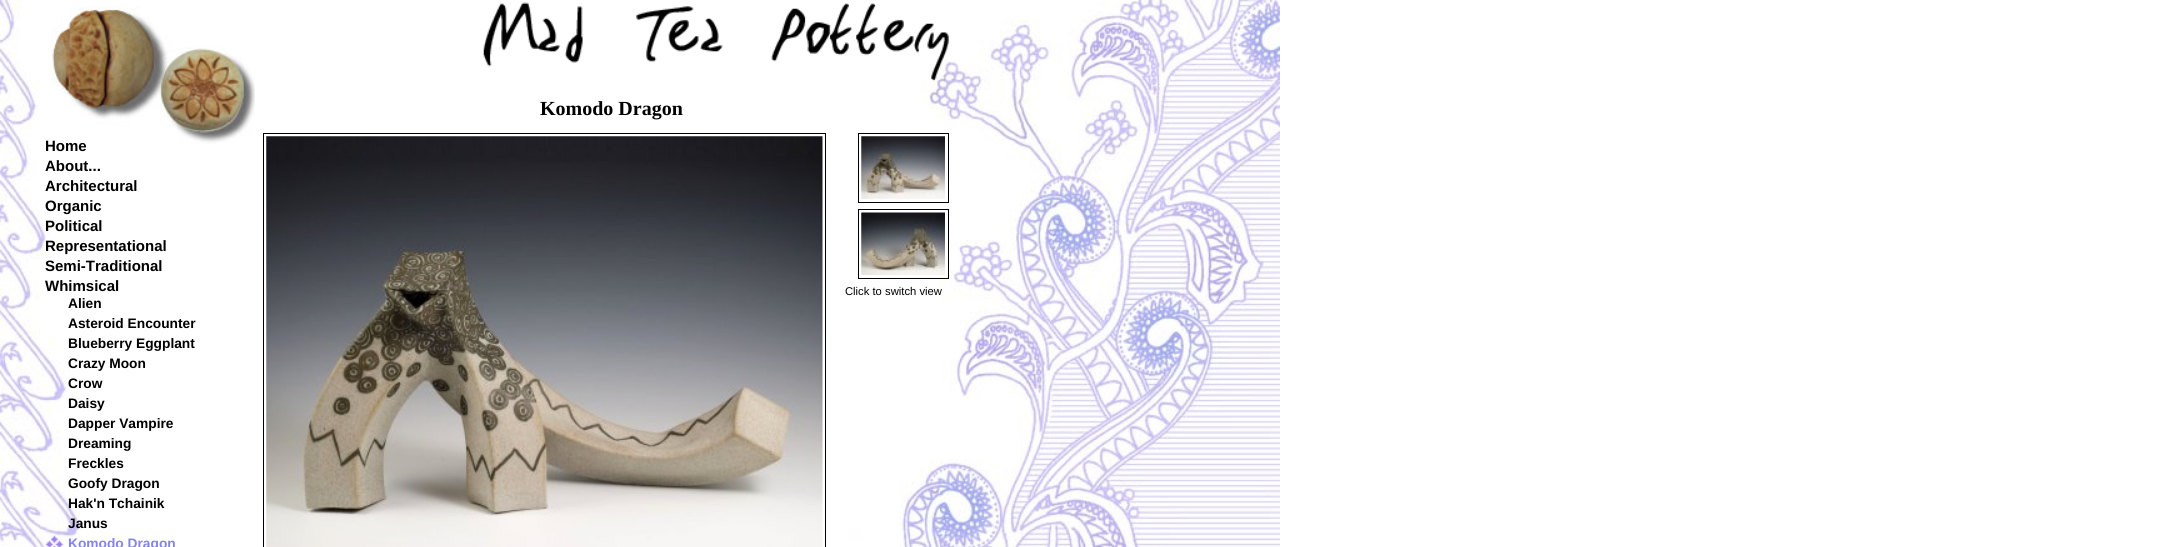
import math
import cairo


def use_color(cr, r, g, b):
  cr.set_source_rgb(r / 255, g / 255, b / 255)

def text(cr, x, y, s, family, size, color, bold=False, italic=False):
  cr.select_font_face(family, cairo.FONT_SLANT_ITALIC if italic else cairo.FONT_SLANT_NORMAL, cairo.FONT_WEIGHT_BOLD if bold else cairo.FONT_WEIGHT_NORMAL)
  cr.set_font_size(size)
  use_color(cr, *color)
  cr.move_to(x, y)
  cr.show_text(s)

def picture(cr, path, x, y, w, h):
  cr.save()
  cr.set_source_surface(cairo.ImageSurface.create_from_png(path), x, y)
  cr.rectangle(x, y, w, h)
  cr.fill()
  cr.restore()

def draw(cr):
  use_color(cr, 255, 255, 255)
  cr.paint()
  picture(cr, "img_01.png", 0, 0, 1280, 547)
  picture(cr, "img_02.png", 50, 6, 205, 138)
  picture(cr, "img_03.png", 45, 535, 19, 12)
  picture(cr, "img_04.png", 483, 2, 466, 79)
  cr.rectangle(263.5, 133.5, 562, 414)
  use_color(cr, 0, 0, 0)
  cr.set_line_width(1)
  cr.stroke()
  picture(cr, "img_05.png", 266, 136, 557, 411)
  cr.rectangle(858.5, 133.5, 90, 69)
  cr.stroke()
  picture(cr, "img_06.png", 861, 136, 84, 63)
  cr.rectangle(858.5, 209.5, 90, 69)
  cr.stroke()
  picture(cr, "img_07.png", 861, 212, 84, 63)
  text(cr, 45, 151, "Home", "Liberation Sans", 15, (0, 0, 0), bold=True)
  text(cr, 45, 171, "About...", "Liberation Sans", 15, (0, 0, 0), bold=True)
  text(cr, 45, 191, "Architectural", "Liberation Sans", 15, (0, 0, 0), bold=True)
  text(cr, 45, 211, "Organic", "Liberation Sans", 15, (0, 0, 0), bold=True)
  text(cr, 45, 231, "Political", "Liberation Sans", 15, (0, 0, 0), bold=True)
  text(cr, 45, 251, "Representational", "Liberation Sans", 15, (0, 0, 0), bold=True)
  text(cr, 45, 271, "Semi-Traditional", "Liberation Sans", 15, (0, 0, 0), bold=True)
  text(cr, 45, 291, "Whimsical", "Liberation Sans", 15, (0, 0, 0), bold=True)
  text(cr, 68, 308, "Alien", "Liberation Sans", 13.75, (0, 0, 0), bold=True)
  text(cr, 68, 328, "Asteroid Encounter", "Liberation Sans", 13.75, (0, 0, 0), bold=True)
  text(cr, 68, 348, "Blueberry Eggplant", "Liberation Sans", 13.75, (0, 0, 0), bold=True)
  text(cr, 68, 368, "Crazy Moon", "Liberation Sans", 13.75, (0, 0, 0), bold=True)
  text(cr, 68, 388, "Crow", "Liberation Sans", 13.75, (0, 0, 0), bold=True)
  text(cr, 68, 408, "Daisy", "Liberation Sans", 13.75, (0, 0, 0), bold=True)
  text(cr, 68, 428, "Dapper Vampire", "Liberation Sans", 13.75, (0, 0, 0), bold=True)
  text(cr, 68, 448, "Dreaming", "Liberation Sans", 13.75, (0, 0, 0), bold=True)
  text(cr, 68, 468, "Freckles", "Liberation Sans", 13.75, (0, 0, 0), bold=True)
  text(cr, 68, 488, "Goofy Dragon", "Liberation Sans", 13.75, (0, 0, 0), bold=True)
  text(cr, 68, 508, "Hak'n Tchainik", "Liberation Sans", 13.75, (0, 0, 0), bold=True)
  text(cr, 68, 528, "Janus", "Liberation Sans", 13.75, (0, 0, 0), bold=True)
  text(cr, 68, 548, "Komodo Dragon", "Liberation Sans", 13.75, (133, 130, 237), bold=True)
  text(cr, 540, 115, "Komodo Dragon", "Liberation Serif", 20, (0, 0, 0), bold=True)
  text(cr, 845, 295, "Click to switch view", "Liberation Sans", 11.25, (0, 0, 0))


surface = cairo.ImageSurface(cairo.FORMAT_RGB24, 2157, 547)
cr = cairo.Context(surface)
options = cairo.FontOptions()
options.set_hint_metrics(cairo.HINT_METRICS_OFF)
options.set_hint_style(cairo.HINT_STYLE_NONE)
cr.set_font_options(options)
cr.set_miter_limit(4)
draw(cr)
surface.write_to_png("out.png")
